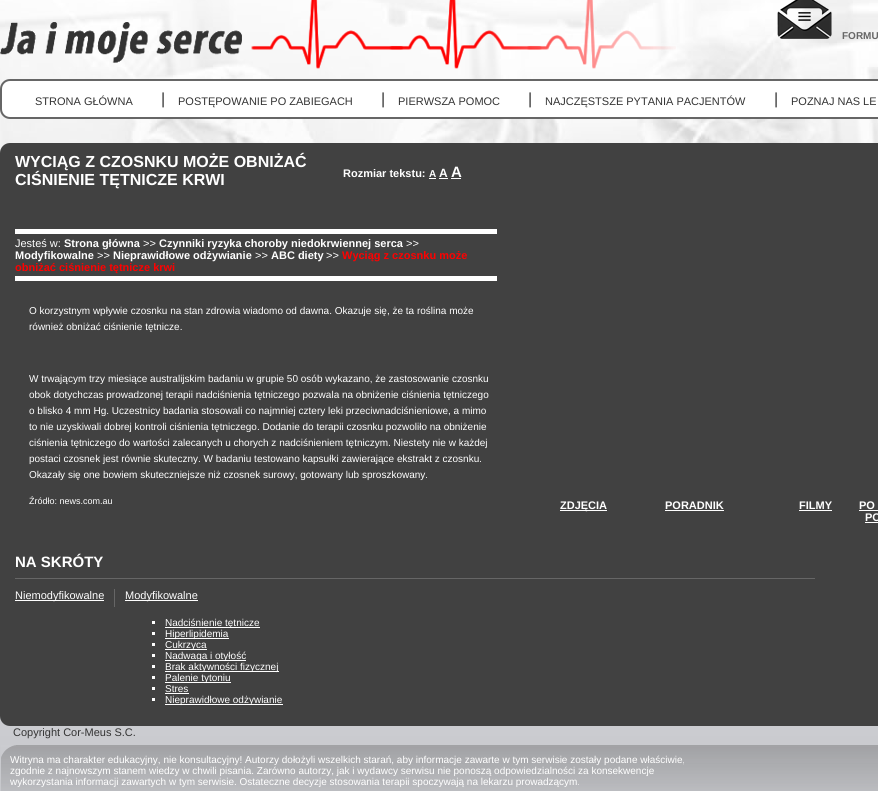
import math
import cairo


def use_color(cr, r, g, b):
  cr.set_source_rgb(r / 255, g / 255, b / 255)

def text(cr, x, y, s, family, size, color, bold=False, italic=False):
  cr.select_font_face(family, cairo.FONT_SLANT_ITALIC if italic else cairo.FONT_SLANT_NORMAL, cairo.FONT_WEIGHT_BOLD if bold else cairo.FONT_WEIGHT_NORMAL)
  cr.set_font_size(size)
  use_color(cr, *color)
  cr.move_to(x, y)
  cr.show_text(s)

def box(cr, x, y, w, h, *color):
  use_color(cr, *color)
  cr.rectangle(x, y, w, h)
  cr.fill()

def round_rect(cr, x, y, w, h, r):
  cr.new_sub_path()
  for i, (u, v) in enumerate([(x + w - r, y + h - r), (x + r, y + h - r), (x + r, y + r), (x + w - r, y + r)]):
    cr.arc(u, v, r, i * math.pi / 2, (i + 1) * math.pi / 2)
  cr.close_path()

def picture(cr, path, x, y, w, h):
  cr.save()
  cr.set_source_surface(cairo.ImageSurface.create_from_png(path), x, y)
  cr.rectangle(x, y, w, h)
  cr.fill()
  cr.restore()

def draw(cr):
  use_color(cr, 255, 255, 255)
  cr.paint()
  picture(cr, "img_01.png", 0, 716, 878, 75)
  picture(cr, "img_02.png", 0, 0, 878, 153)
  picture(cr, "img_03.png", 0, 0, 676, 69)
  picture(cr, "img_04.png", 777, 0, 55, 39)
  use_color(cr, 255, 255, 255)
  round_rect(cr, 1, 80, 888, 38, 9)
  cr.fill_preserve()
  use_color(cr, 102, 102, 102)
  cr.stroke()
  use_color(cr, 65, 65, 65)
  round_rect(cr, 0, 143, 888, 583, 10)
  cr.fill()
  box(cr, 429, 178, 7, 1, 255, 255, 255)
  box(cr, 439, 178, 9, 1, 255, 255, 255)
  box(cr, 451, 178, 10, 1, 255, 255, 255)
  box(cr, 15, 229, 482, 5, 255, 255, 255)
  box(cr, 15, 276, 482, 5, 255, 255, 255)
  box(cr, 15, 578, 800, 1, 102, 102, 102)
  box(cr, 114, 589, 1, 18, 102, 102, 102)
  box(cr, 15, 600, 89, 1, 255, 255, 255)
  box(cr, 125, 600, 73, 1, 255, 255, 255)
  box(cr, 152, 621, 3, 3, 255, 255, 255)
  box(cr, 165, 627, 95, 1, 255, 255, 255)
  box(cr, 152, 632, 3, 3, 255, 255, 255)
  box(cr, 165, 638, 64, 1, 255, 255, 255)
  box(cr, 152, 643, 3, 3, 255, 255, 255)
  box(cr, 165, 649, 42, 1, 255, 255, 255)
  box(cr, 152, 654, 3, 3, 255, 255, 255)
  box(cr, 165, 660, 81, 1, 255, 255, 255)
  box(cr, 152, 665, 3, 3, 255, 255, 255)
  box(cr, 165, 671, 114, 1, 255, 255, 255)
  box(cr, 152, 676, 3, 3, 255, 255, 255)
  box(cr, 165, 682, 66, 1, 255, 255, 255)
  box(cr, 152, 687, 3, 3, 255, 255, 255)
  box(cr, 165, 693, 24, 1, 255, 255, 255)
  box(cr, 152, 698, 3, 3, 255, 255, 255)
  box(cr, 165, 704, 118, 1, 255, 255, 255)
  box(cr, 560, 510, 47, 1, 255, 255, 255)
  box(cr, 665, 510, 59, 1, 255, 255, 255)
  box(cr, 799, 510, 33, 1, 255, 255, 255)
  box(cr, 859, 510, 19, 1, 255, 255, 255)
  box(cr, 865, 522, 13, 1, 255, 255, 255)
  picture(cr, "img_05.png", 1, 745, 877, 46)
  text(cr, 842, 39, "FORMU", "Liberation Sans", 10, (102, 102, 102), bold=True)
  text(cr, 35, 105, "STRONA GŁÓWNA", "Liberation Sans", 11, (51, 51, 51))
  text(cr, 161, 104, "|", "Liberation Sans", 16, (51, 51, 51))
  text(cr, 178, 105, "POSTĘPOWANIE PO ZABIEGACH", "Liberation Sans", 11, (51, 51, 51))
  text(cr, 381, 104, "|", "Liberation Sans", 16, (51, 51, 51))
  text(cr, 398, 105, "PIERWSZA POMOC", "Liberation Sans", 11, (51, 51, 51))
  text(cr, 528, 104, "|", "Liberation Sans", 16, (51, 51, 51))
  text(cr, 545, 105, "NAJCZĘSTSZE PYTANIA PACJENTÓW", "Liberation Sans", 11, (51, 51, 51))
  text(cr, 774, 104, "|", "Liberation Sans", 16, (51, 51, 51))
  text(cr, 791, 105, "POZNAJ NAS LE", "Liberation Sans", 11, (51, 51, 51))
  text(cr, 15, 167, "WYCIĄG Z CZOSNKU MOŻE OBNIŻAĆ", "Liberation Sans", 16, (255, 255, 255), bold=True)
  text(cr, 15, 185, "CIŚNIENIE TĘTNICZE KRWI", "Liberation Sans", 16, (255, 255, 255), bold=True)
  text(cr, 343, 177, "Rozmiar tekstu:", "Liberation Sans", 11, (255, 255, 255), bold=True)
  text(cr, 429, 177, "A", "Liberation Sans", 10, (255, 255, 255), bold=True)
  text(cr, 439, 177, "A", "Liberation Sans", 12, (255, 255, 255), bold=True)
  text(cr, 451, 177, "A", "Liberation Sans", 15, (255, 255, 255), bold=True)
  text(cr, 15, 247, "Jesteś w:", "Liberation Sans", 11, (255, 255, 255))
  text(cr, 64, 247, "Strona główna", "Liberation Sans", 11, (255, 255, 255), bold=True)
  text(cr, 143, 247, ">>", "Liberation Sans", 11, (255, 255, 255))
  text(cr, 159, 247, "Czynniki ryzyka choroby niedokrwiennej serca", "Liberation Sans", 11, (255, 255, 255), bold=True)
  text(cr, 406, 247, ">>", "Liberation Sans", 11, (255, 255, 255))
  text(cr, 15, 259, "Modyfikowalne", "Liberation Sans", 11, (255, 255, 255), bold=True)
  text(cr, 97, 259, ">>", "Liberation Sans", 11, (255, 255, 255))
  text(cr, 113, 259, "Nieprawidłowe odżywianie", "Liberation Sans", 11, (255, 255, 255), bold=True)
  text(cr, 255, 259, ">>", "Liberation Sans", 11, (255, 255, 255))
  text(cr, 271, 259, "ABC diety", "Liberation Sans", 11, (255, 255, 255), bold=True)
  text(cr, 326, 259, ">>", "Liberation Sans", 11, (255, 255, 255))
  text(cr, 342, 259, "Wyciąg z czosnku może", "Liberation Sans", 11, (255, 0, 0), bold=True)
  text(cr, 15, 271, "obniżać ciśnienie tętnicze krwi", "Liberation Sans", 11, (255, 0, 0), bold=True)
  text(cr, 29, 314, "O korzystnym wpływie czosnku na stan zdrowia wiadomo od dawna. Okazuje się, że ta roślina może", "Liberation Sans", 10, (255, 255, 255))
  text(cr, 29, 330, "również obniżać ciśnienie tętnicze.", "Liberation Sans", 10, (255, 255, 255))
  text(cr, 29, 382, "W trwającym trzy miesiące australijskim badaniu w grupie 50 osób wykazano, że zastosowanie czosnku", "Liberation Sans", 10, (255, 255, 255))
  text(cr, 29, 398, "obok dotychczas prowadzonej terapii nadciśnienia tętniczego pozwala na obniżenie ciśnienia tętniczego", "Liberation Sans", 10, (255, 255, 255))
  text(cr, 29, 414, "o blisko 4 mm Hg. Uczestnicy badania stosowali co najmniej cztery leki przeciwnadciśnieniowe, a mimo", "Liberation Sans", 10, (255, 255, 255))
  text(cr, 29, 430, "to nie uzyskiwali dobrej kontroli ciśnienia tętniczego. Dodanie do terapii czosnku pozwoliło na obniżenie", "Liberation Sans", 10, (255, 255, 255))
  text(cr, 29, 446, "ciśnienia tętniczego do wartości zalecanych u chorych z nadciśnieniem tętniczym. Niestety nie w każdej", "Liberation Sans", 10, (255, 255, 255))
  text(cr, 29, 462, "postaci czosnek jest równie skuteczny. W badaniu testowano kapsułki zawierające ekstrakt z czosnku.", "Liberation Sans", 10, (255, 255, 255))
  text(cr, 29, 478, "Okazały się one bowiem skuteczniejsze niż czosnek surowy, gotowany lub sproszkowany.", "Liberation Sans", 10, (255, 255, 255))
  text(cr, 29, 504, "Źródło: news.com.au", "Liberation Sans", 9, (255, 255, 255))
  text(cr, 15, 567, "NA SKRÓTY", "Liberation Sans", 15, (255, 255, 255), bold=True)
  text(cr, 15, 599, "Niemodyfikowalne", "Liberation Sans", 11, (255, 255, 255))
  text(cr, 125, 599, "Modyfikowalne", "Liberation Sans", 11, (255, 255, 255))
  text(cr, 165, 626, "Nadciśnienie tętnicze", "Liberation Sans", 10, (255, 255, 255))
  text(cr, 165, 637, "Hiperlipidemia", "Liberation Sans", 10, (255, 255, 255))
  text(cr, 165, 648, "Cukrzyca", "Liberation Sans", 10, (255, 255, 255))
  text(cr, 165, 659, "Nadwaga i otyłość", "Liberation Sans", 10, (255, 255, 255))
  text(cr, 165, 670, "Brak aktywności fizycznej", "Liberation Sans", 10, (255, 255, 255))
  text(cr, 165, 681, "Palenie tytoniu", "Liberation Sans", 10, (255, 255, 255))
  text(cr, 165, 692, "Stres", "Liberation Sans", 10, (255, 255, 255))
  text(cr, 165, 703, "Nieprawidłowe odżywianie", "Liberation Sans", 10, (255, 255, 255))
  text(cr, 560, 509, "ZDJĘCIA", "Liberation Sans", 11, (255, 255, 255), bold=True)
  text(cr, 665, 509, "PORADNIK", "Liberation Sans", 11, (255, 255, 255), bold=True)
  text(cr, 799, 509, "FILMY", "Liberation Sans", 11, (255, 255, 255), bold=True)
  text(cr, 859, 509, "PO", "Liberation Sans", 11, (255, 255, 255), bold=True)
  text(cr, 865, 521, "PO", "Liberation Sans", 11, (255, 255, 255), bold=True)
  text(cr, 13, 736, "Copyright Cor-Meus S.C.", "Liberation Sans", 11, (51, 51, 51))
  text(cr, 10, 763, "Witryna ma charakter edukacyjny, nie konsultacyjny! Autorzy dołożyli wszelkich starań, aby informacje zawarte w tym serwisie zostały podane właściwie,", "Liberation Sans", 10, (255, 255, 255))
  text(cr, 10, 774, "zgodnie z najnowszym stanem wiedzy w chwili pisania. Zarówno autorzy, jak i wydawcy serwisu nie ponoszą odpowiedzialności za konsekwencje", "Liberation Sans", 10, (255, 255, 255))
  text(cr, 10, 785, "wykorzystania informacji zawartych w tym serwisie. Ostateczne decyzje stosowania terapii spoczywają na lekarzu prowadzącym.", "Liberation Sans", 10, (255, 255, 255))


surface = cairo.ImageSurface(cairo.FORMAT_RGB24, 878, 791)
cr = cairo.Context(surface)
options = cairo.FontOptions()
options.set_hint_metrics(cairo.HINT_METRICS_OFF)
options.set_hint_style(cairo.HINT_STYLE_NONE)
cr.set_font_options(options)
cr.set_miter_limit(4)
draw(cr)
surface.write_to_png("out.png")
